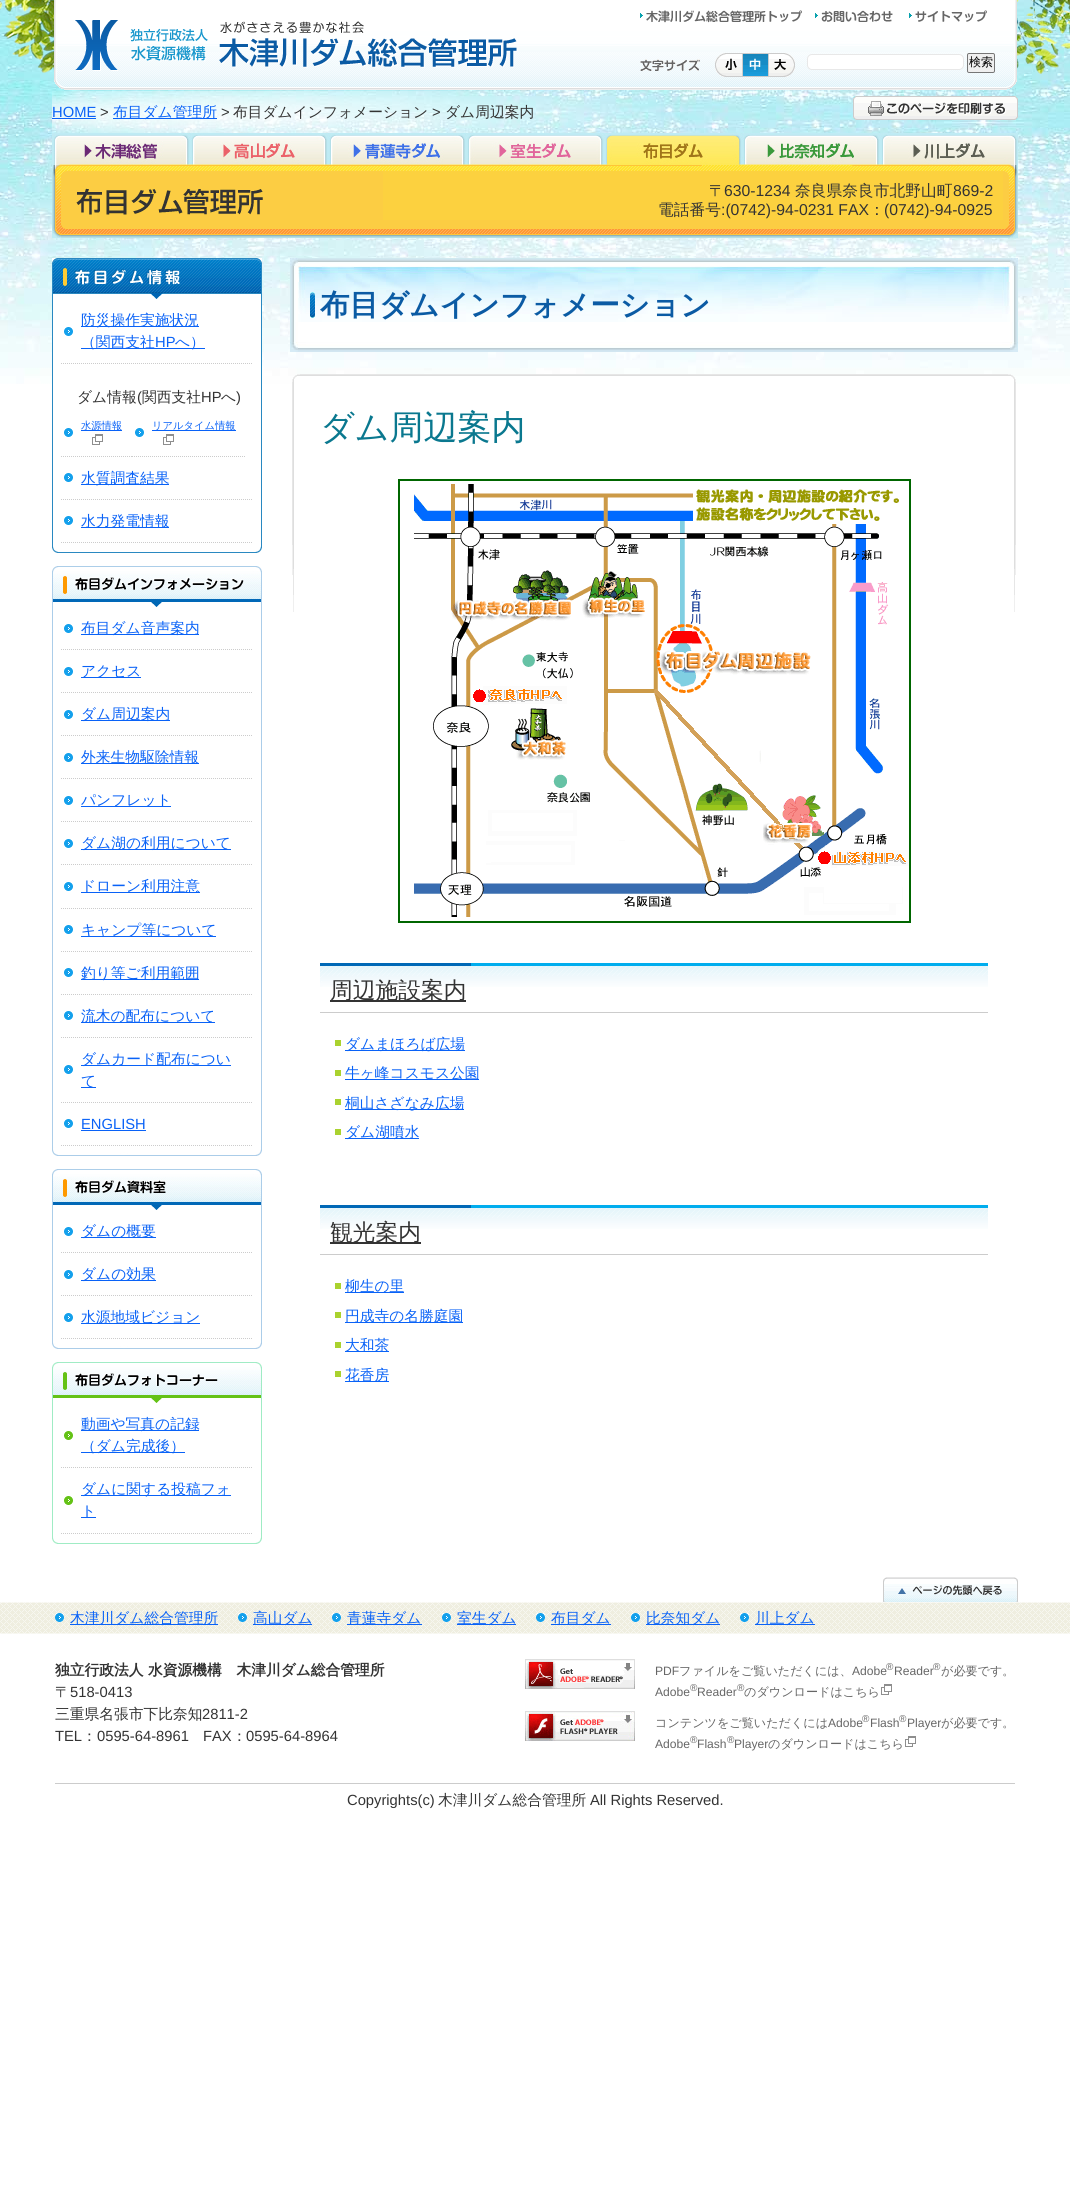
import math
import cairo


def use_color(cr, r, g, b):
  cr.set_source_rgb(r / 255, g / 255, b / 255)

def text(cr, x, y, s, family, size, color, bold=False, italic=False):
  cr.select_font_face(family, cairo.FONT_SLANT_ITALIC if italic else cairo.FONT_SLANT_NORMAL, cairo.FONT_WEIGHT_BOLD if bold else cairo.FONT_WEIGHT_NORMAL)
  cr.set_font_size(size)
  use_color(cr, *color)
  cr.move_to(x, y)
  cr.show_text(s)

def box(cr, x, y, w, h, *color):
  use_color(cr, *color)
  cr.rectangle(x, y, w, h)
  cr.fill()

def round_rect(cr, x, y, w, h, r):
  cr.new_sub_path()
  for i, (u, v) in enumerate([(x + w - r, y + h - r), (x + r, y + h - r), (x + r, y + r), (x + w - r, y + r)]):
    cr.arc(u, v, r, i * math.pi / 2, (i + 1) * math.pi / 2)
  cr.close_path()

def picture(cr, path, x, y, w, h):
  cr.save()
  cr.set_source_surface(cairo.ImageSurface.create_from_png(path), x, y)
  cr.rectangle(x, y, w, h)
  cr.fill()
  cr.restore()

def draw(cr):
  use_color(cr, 255, 255, 255)
  cr.paint()
  picture(cr, "img_01.png", 0, 0, 1070, 384)
  picture(cr, "img_02.png", 0, 0, 1070, 74)
  picture(cr, "img_03.png", 54, 0, 963, 90)
  picture(cr, "img_04.png", 75, 20, 443, 51)
  picture(cr, "img_05.png", 640, 10, 162, 13)
  picture(cr, "img_06.png", 815, 10, 78, 12)
  picture(cr, "img_07.png", 909, 10, 78, 12)
  picture(cr, "img_08.png", 640, 59, 60, 12)
  picture(cr, "img_09.png", 715, 53, 27, 24)
  picture(cr, "img_10.png", 742, 53, 27, 24)
  picture(cr, "img_11.png", 769, 53, 26, 24)
  use_color(cr, 255, 255, 255)
  round_rect(cr, 807.5, 54.5, 156, 15, 4.5)
  cr.fill_preserve()
  use_color(cr, 232, 232, 232)
  cr.set_line_width(1)
  cr.stroke()
  use_color(cr, 239, 239, 239)
  round_rect(cr, 967.5, 53.5, 27, 19, 1.5)
  cr.fill_preserve()
  use_color(cr, 118, 118, 118)
  cr.stroke()
  picture(cr, "img_12.png", 52, 91, 609, 42)
  box(cr, 52, 118, 44, 1, 9, 98, 247)
  box(cr, 113, 118, 104, 1, 9, 98, 247)
  picture(cr, "img_13.png", 853, 96, 165, 24)
  picture(cr, "img_14.png", 52, 133, 138, 32)
  picture(cr, "img_15.png", 190, 133, 138, 32)
  picture(cr, "img_16.png", 328, 133, 138, 32)
  picture(cr, "img_17.png", 466, 133, 138, 32)
  picture(cr, "img_18.png", 604, 133, 138, 32)
  picture(cr, "img_19.png", 742, 133, 138, 32)
  picture(cr, "img_20.png", 880, 133, 138, 32)
  picture(cr, "img_21.png", 52, 165, 966, 73)
  box(cr, 383, 171, 620, 49, 252, 209, 63)
  box(cr, 52, 258, 210, 126, 255, 255, 255)
  picture(cr, "img_22.png", 52, 533, 210, 20)
  picture(cr, "img_23.png", 52, 258, 210, 41)
  box(cr, 261, 299, 1, 234, 40, 136, 193)
  box(cr, 52, 299, 1, 244, 40, 136, 193)
  picture(cr, "img_24.png", 64, 327, 9, 9)
  cr.new_path()
  cr.move_to(61, 363.5)
  cr.line_to(253, 363.5)
  use_color(cr, 204, 204, 204)
  cr.set_dash([1, 1])
  cr.stroke()
  box(cr, 81, 326, 118, 1, 9, 98, 247)
  box(cr, 81, 348, 124, 1, 9, 98, 247)
  picture(cr, "img_24.png", 64, 428, 9, 9)
  cr.new_path()
  cr.move_to(61, 456.5)
  cr.line_to(132, 456.5)
  use_color(cr, 204, 204, 204)
  cr.stroke()
  box(cr, 81, 430, 41, 1, 9, 98, 247)
  picture(cr, "img_25.png", 92, 434, 11, 11)
  picture(cr, "img_24.png", 135, 428, 9, 9)
  cr.new_path()
  cr.move_to(132, 456.5)
  cr.line_to(246, 456.5)
  use_color(cr, 204, 204, 204)
  cr.stroke()
  box(cr, 152, 430, 84, 1, 9, 98, 247)
  picture(cr, "img_25.png", 163, 434, 11, 11)
  picture(cr, "img_24.png", 64, 473, 9, 9)
  cr.new_path()
  cr.move_to(61, 499.5)
  cr.line_to(253, 499.5)
  use_color(cr, 204, 204, 204)
  cr.stroke()
  box(cr, 81, 484, 88, 1, 9, 98, 247)
  picture(cr, "img_24.png", 64, 516, 9, 9)
  cr.new_path()
  cr.move_to(61, 542.5)
  cr.line_to(253, 542.5)
  use_color(cr, 204, 204, 204)
  cr.stroke()
  box(cr, 81, 527, 88, 1, 9, 98, 247)
  picture(cr, "img_26.png", 52, 1136, 210, 20)
  picture(cr, "img_27.png", 52, 566, 210, 41)
  box(cr, 261, 607, 1, 529, 171, 205, 233)
  box(cr, 52, 607, 1, 529, 171, 205, 233)
  picture(cr, "img_24.png", 64, 624, 9, 9)
  cr.new_path()
  cr.move_to(61, 649.5)
  cr.line_to(253, 649.5)
  use_color(cr, 204, 204, 204)
  cr.stroke()
  box(cr, 81, 634, 118, 1, 9, 98, 247)
  picture(cr, "img_24.png", 64, 667, 9, 9)
  cr.new_path()
  cr.move_to(61, 692.5)
  cr.line_to(253, 692.5)
  use_color(cr, 204, 204, 204)
  cr.stroke()
  box(cr, 81, 677, 60, 1, 9, 98, 247)
  picture(cr, "img_24.png", 64, 710, 9, 9)
  cr.new_path()
  cr.move_to(61, 735.5)
  cr.line_to(253, 735.5)
  use_color(cr, 204, 204, 204)
  cr.stroke()
  box(cr, 81, 720, 89, 1, 9, 98, 247)
  picture(cr, "img_24.png", 64, 753, 9, 9)
  cr.new_path()
  cr.move_to(61, 778.5)
  cr.line_to(253, 778.5)
  use_color(cr, 204, 204, 204)
  cr.stroke()
  box(cr, 81, 763, 118, 1, 9, 98, 247)
  picture(cr, "img_24.png", 64, 796, 9, 9)
  cr.new_path()
  cr.move_to(61, 821.5)
  cr.line_to(253, 821.5)
  use_color(cr, 204, 204, 204)
  cr.stroke()
  box(cr, 81, 806, 90, 1, 9, 98, 247)
  picture(cr, "img_24.png", 64, 839, 9, 9)
  cr.new_path()
  cr.move_to(61, 864.5)
  cr.line_to(253, 864.5)
  use_color(cr, 204, 204, 204)
  cr.stroke()
  box(cr, 81, 849, 150, 1, 9, 98, 247)
  picture(cr, "img_24.png", 64, 882, 9, 9)
  cr.new_path()
  cr.move_to(61, 908.5)
  cr.line_to(253, 908.5)
  use_color(cr, 204, 204, 204)
  cr.stroke()
  box(cr, 81, 892, 119, 1, 9, 98, 247)
  picture(cr, "img_24.png", 64, 925, 9, 9)
  cr.new_path()
  cr.move_to(61, 951.5)
  cr.line_to(253, 951.5)
  use_color(cr, 204, 204, 204)
  cr.stroke()
  box(cr, 81, 936, 135, 1, 9, 98, 247)
  picture(cr, "img_24.png", 64, 968, 9, 9)
  cr.new_path()
  cr.move_to(61, 994.5)
  cr.line_to(253, 994.5)
  use_color(cr, 204, 204, 204)
  cr.stroke()
  box(cr, 81, 979, 118, 1, 9, 98, 247)
  picture(cr, "img_24.png", 64, 1011, 9, 9)
  cr.new_path()
  cr.move_to(61, 1037.5)
  cr.line_to(253, 1037.5)
  use_color(cr, 204, 204, 204)
  cr.stroke()
  box(cr, 81, 1022, 134, 1, 9, 98, 247)
  picture(cr, "img_24.png", 64, 1065, 9, 9)
  cr.new_path()
  cr.move_to(61, 1102.5)
  cr.line_to(253, 1102.5)
  use_color(cr, 204, 204, 204)
  cr.stroke()
  box(cr, 81, 1065, 150, 1, 9, 98, 247)
  box(cr, 81, 1087, 15, 1, 9, 98, 247)
  picture(cr, "img_24.png", 64, 1119, 9, 9)
  cr.new_path()
  cr.move_to(61, 1145.5)
  cr.line_to(253, 1145.5)
  use_color(cr, 204, 204, 204)
  cr.stroke()
  box(cr, 81, 1130, 65, 1, 9, 98, 247)
  picture(cr, "img_26.png", 52, 1329, 210, 20)
  picture(cr, "img_28.png", 52, 1169, 210, 41)
  box(cr, 261, 1210, 1, 119, 171, 205, 233)
  box(cr, 52, 1210, 1, 119, 171, 205, 233)
  picture(cr, "img_24.png", 64, 1227, 9, 9)
  cr.new_path()
  cr.move_to(61, 1252.5)
  cr.line_to(253, 1252.5)
  use_color(cr, 204, 204, 204)
  cr.stroke()
  box(cr, 81, 1237, 75, 1, 9, 98, 247)
  picture(cr, "img_24.png", 64, 1270, 9, 9)
  cr.new_path()
  cr.move_to(61, 1295.5)
  cr.line_to(253, 1295.5)
  use_color(cr, 204, 204, 204)
  cr.stroke()
  box(cr, 81, 1280, 75, 1, 9, 98, 247)
  picture(cr, "img_24.png", 64, 1313, 9, 9)
  cr.new_path()
  cr.move_to(61, 1338.5)
  cr.line_to(253, 1338.5)
  use_color(cr, 204, 204, 204)
  cr.stroke()
  box(cr, 81, 1323, 119, 1, 9, 98, 247)
  picture(cr, "img_29.png", 52, 1524, 210, 20)
  picture(cr, "img_30.png", 52, 1362, 210, 41)
  box(cr, 261, 1403, 1, 121, 159, 236, 196)
  box(cr, 52, 1403, 1, 121, 159, 236, 196)
  picture(cr, "img_31.png", 64, 1431, 9, 9)
  cr.new_path()
  cr.move_to(61, 1467.5)
  cr.line_to(253, 1467.5)
  use_color(cr, 204, 204, 204)
  cr.stroke()
  box(cr, 81, 1430, 118, 1, 9, 98, 247)
  box(cr, 81, 1452, 104, 1, 9, 98, 247)
  picture(cr, "img_31.png", 64, 1496, 9, 9)
  cr.new_path()
  cr.move_to(61, 1533.5)
  cr.line_to(253, 1533.5)
  use_color(cr, 204, 204, 204)
  cr.stroke()
  box(cr, 81, 1495, 150, 1, 9, 98, 247)
  box(cr, 81, 1517, 15, 1, 9, 98, 247)
  picture(cr, "img_32.png", 290, 322, 728, 20)
  picture(cr, "img_33.png", 290, 258, 728, 64)
  picture(cr, "img_34.png", 290, 342, 728, 10)
  picture(cr, "img_35.png", 310, 292, 5, 26)
  picture(cr, "img_36.png", 292, 374, 724, 238)
  picture(cr, "img_37.png", 398, 479, 513, 444)
  picture(cr, "img_38.png", 320, 963, 668, 24)
  box(cr, 320, 1012, 668, 1, 204, 204, 204)
  box(cr, 330, 1000, 136, 2, 51, 51, 51)
  box(cr, 335, 1040, 6, 6, 170, 210, 47)
  box(cr, 345, 1050, 120, 1, 9, 98, 247)
  box(cr, 335, 1070, 6, 6, 170, 210, 47)
  box(cr, 345, 1079, 134, 1, 9, 98, 247)
  box(cr, 335, 1099, 6, 6, 170, 210, 47)
  box(cr, 345, 1109, 119, 1, 9, 98, 247)
  box(cr, 335, 1129, 6, 6, 170, 210, 47)
  box(cr, 345, 1138, 74, 1, 9, 98, 247)
  picture(cr, "img_38.png", 320, 1205, 668, 24)
  box(cr, 320, 1254, 668, 1, 204, 204, 204)
  box(cr, 330, 1242, 91, 2, 51, 51, 51)
  box(cr, 335, 1283, 6, 6, 170, 210, 47)
  box(cr, 345, 1292, 59, 1, 9, 98, 247)
  box(cr, 335, 1312, 6, 6, 170, 210, 47)
  box(cr, 345, 1322, 118, 1, 9, 98, 247)
  box(cr, 335, 1342, 6, 6, 170, 210, 47)
  box(cr, 345, 1351, 44, 1, 9, 98, 247)
  box(cr, 335, 1371, 6, 6, 170, 210, 47)
  box(cr, 345, 1381, 44, 1, 9, 98, 247)
  picture(cr, "img_39.png", 883, 1577, 135, 25)
  picture(cr, "img_40.png", 0, 1602, 1070, 32)
  picture(cr, "img_41.png", 55, 1613, 9, 9)
  box(cr, 70, 1624, 148, 1, 9, 98, 247)
  picture(cr, "img_42.png", 238, 1613, 9, 9)
  box(cr, 253, 1624, 59, 1, 9, 98, 247)
  picture(cr, "img_43.png", 332, 1613, 9, 9)
  box(cr, 347, 1624, 75, 1, 9, 98, 247)
  picture(cr, "img_42.png", 442, 1613, 9, 9)
  box(cr, 457, 1624, 59, 1, 9, 98, 247)
  picture(cr, "img_43.png", 536, 1613, 9, 9)
  box(cr, 551, 1624, 60, 1, 9, 98, 247)
  picture(cr, "img_41.png", 631, 1613, 9, 9)
  box(cr, 646, 1624, 74, 1, 9, 98, 247)
  picture(cr, "img_43.png", 740, 1613, 9, 9)
  box(cr, 755, 1624, 60, 1, 9, 98, 247)
  picture(cr, "img_44.png", 525, 1659, 110, 30)
  picture(cr, "img_25.png", 881, 1684, 11, 11)
  picture(cr, "img_45.png", 525, 1711, 110, 30)
  picture(cr, "img_25.png", 905, 1736, 11, 11)
  box(cr, 55, 1783, 960, 1, 204, 204, 204)
  text(cr, 969, 66, "検索", "WenQuanYi Zen Hei Medium", 12, (0, 0, 0))
  text(cr, 52, 117, "HOME", "Liberation Sans", 14.75, (9, 98, 247))
  text(cr, 100, 117, ">", "Liberation Sans", 14.75, (51, 51, 51))
  text(cr, 113, 117, "布目ダム管理所", "WenQuanYi Zen Hei Medium", 14.75, (9, 98, 247))
  text(cr, 221, 117, ">", "Liberation Sans", 14.75, (51, 51, 51))
  text(cr, 233, 117, "布目ダムインフォメーション", "WenQuanYi Zen Hei Medium", 14.75, (51, 51, 51))
  text(cr, 432, 117, ">", "Liberation Sans", 14.75, (51, 51, 51))
  text(cr, 445, 117, "ダム周辺案内", "WenQuanYi Zen Hei Medium", 14.75, (51, 51, 51))
  text(cr, 709, 196, "〒", "WenQuanYi Zen Hei Medium", 15.75, (51, 51, 51))
  text(cr, 724, 196, "630-1234", "Liberation Sans", 15.75, (51, 51, 51))
  text(cr, 795, 196, "奈良県奈良市北野山町", "WenQuanYi Zen Hei Medium", 15.75, (51, 51, 51))
  text(cr, 953, 196, "869-2", "Liberation Sans", 15.75, (51, 51, 51))
  text(cr, 658, 215, "電話番号", "WenQuanYi Zen Hei Medium", 15.75, (51, 51, 51))
  text(cr, 721, 215, ":(0742)-94-0231 FAX", "Liberation Sans", 15.75, (51, 51, 51))
  text(cr, 869, 215, "：", "WenQuanYi Zen Hei Medium", 15.75, (51, 51, 51))
  text(cr, 884, 215, "(0742)-94-0925", "Liberation Sans", 15.75, (51, 51, 51))
  text(cr, 81, 325, "防災操作実施状況", "WenQuanYi Zen Hei Medium", 14.75, (9, 98, 247))
  text(cr, 81, 347, "（関西支社", "WenQuanYi Zen Hei Medium", 14.75, (9, 98, 247))
  text(cr, 155, 347, "HP", "Liberation Sans", 14.75, (9, 98, 247))
  text(cr, 175, 347, "へ）", "WenQuanYi Zen Hei Medium", 14.75, (9, 98, 247))
  text(cr, 77, 402, "ダム情報", "WenQuanYi Zen Hei Medium", 14.75, (51, 51, 51))
  text(cr, 137, 402, "(", "Liberation Sans", 14.75, (51, 51, 51))
  text(cr, 142, 402, "関西支社", "WenQuanYi Zen Hei Medium", 14.75, (51, 51, 51))
  text(cr, 201, 402, "HP", "Liberation Sans", 14.75, (51, 51, 51))
  text(cr, 221, 402, "へ", "WenQuanYi Zen Hei Medium", 14.75, (51, 51, 51))
  text(cr, 236, 402, ")", "Liberation Sans", 14.75, (51, 51, 51))
  text(cr, 81, 429, "水源情報", "WenQuanYi Zen Hei Medium", 10.25, (9, 98, 247))
  text(cr, 152, 429, "リアルタイム情報", "WenQuanYi Zen Hei Medium", 10.25, (9, 98, 247))
  text(cr, 81, 483, "水質調査結果", "WenQuanYi Zen Hei Medium", 14.75, (9, 98, 247))
  text(cr, 81, 526, "水力発電情報", "WenQuanYi Zen Hei Medium", 14.75, (9, 98, 247))
  text(cr, 81, 633, "布目ダム音声案内", "WenQuanYi Zen Hei Medium", 14.75, (9, 98, 247))
  text(cr, 81, 676, "アクセス", "WenQuanYi Zen Hei Medium", 14.75, (9, 98, 247))
  text(cr, 81, 719, "ダム周辺案内", "WenQuanYi Zen Hei Medium", 14.75, (9, 98, 247))
  text(cr, 81, 762, "外来生物駆除情報", "WenQuanYi Zen Hei Medium", 14.75, (9, 98, 247))
  text(cr, 81, 805, "パンフレット", "WenQuanYi Zen Hei Medium", 14.75, (9, 98, 247))
  text(cr, 81, 848, "ダム湖の利用について", "WenQuanYi Zen Hei Medium", 14.75, (9, 98, 247))
  text(cr, 81, 891, "ドローン利用注意", "WenQuanYi Zen Hei Medium", 14.75, (9, 98, 247))
  text(cr, 81, 935, "キャンプ等について", "WenQuanYi Zen Hei Medium", 14.75, (9, 98, 247))
  text(cr, 81, 978, "釣り等ご利用範囲", "WenQuanYi Zen Hei Medium", 14.75, (9, 98, 247))
  text(cr, 81, 1021, "流木の配布について", "WenQuanYi Zen Hei Medium", 14.75, (9, 98, 247))
  text(cr, 81, 1064, "ダムカード配布につい", "WenQuanYi Zen Hei Medium", 14.75, (9, 98, 247))
  text(cr, 81, 1086, "て", "WenQuanYi Zen Hei Medium", 14.75, (9, 98, 247))
  text(cr, 81, 1129, "ENGLISH", "Liberation Sans", 14.75, (9, 98, 247))
  text(cr, 81, 1236, "ダムの概要", "WenQuanYi Zen Hei Medium", 14.75, (9, 98, 247))
  text(cr, 81, 1279, "ダムの効果", "WenQuanYi Zen Hei Medium", 14.75, (9, 98, 247))
  text(cr, 81, 1322, "水源地域ビジョン", "WenQuanYi Zen Hei Medium", 14.75, (9, 98, 247))
  text(cr, 81, 1429, "動画や写真の記録", "WenQuanYi Zen Hei Medium", 14.75, (9, 98, 247))
  text(cr, 81, 1451, "（ダム完成後）", "WenQuanYi Zen Hei Medium", 14.75, (9, 98, 247))
  text(cr, 81, 1494, "ダムに関する投稿フォ", "WenQuanYi Zen Hei Medium", 14.75, (9, 98, 247))
  text(cr, 81, 1516, "ト", "WenQuanYi Zen Hei Medium", 14.75, (9, 98, 247))
  text(cr, 320, 315, "布目ダムインフォメーション", "WenQuanYi Zen Hei", 29.5, (11, 91, 164), bold=True)
  text(cr, 320, 439, "ダム周辺案内", "WenQuanYi Zen Hei Medium", 34, (10, 120, 143))
  text(cr, 330, 998, "周辺施設案内", "WenQuanYi Zen Hei Medium", 22.75, (51, 51, 51))
  text(cr, 345, 1049, "ダムまほろば広場", "WenQuanYi Zen Hei Medium", 14.75, (9, 98, 247))
  text(cr, 345, 1078, "牛ヶ峰コスモス公園", "WenQuanYi Zen Hei Medium", 14.75, (9, 98, 247))
  text(cr, 345, 1108, "桐山さざなみ広場", "WenQuanYi Zen Hei Medium", 14.75, (9, 98, 247))
  text(cr, 345, 1137, "ダム湖噴水", "WenQuanYi Zen Hei Medium", 14.75, (9, 98, 247))
  text(cr, 330, 1240, "観光案内", "WenQuanYi Zen Hei Medium", 22.75, (51, 51, 51))
  text(cr, 345, 1291, "柳生の里", "WenQuanYi Zen Hei Medium", 14.75, (9, 98, 247))
  text(cr, 345, 1321, "円成寺の名勝庭園", "WenQuanYi Zen Hei Medium", 14.75, (9, 98, 247))
  text(cr, 345, 1350, "大和茶", "WenQuanYi Zen Hei Medium", 14.75, (9, 98, 247))
  text(cr, 345, 1380, "花香房", "WenQuanYi Zen Hei Medium", 14.75, (9, 98, 247))
  text(cr, 70, 1623, "木津川ダム総合管理所", "WenQuanYi Zen Hei Medium", 14.75, (9, 98, 247))
  text(cr, 253, 1623, "高山ダム", "WenQuanYi Zen Hei Medium", 14.75, (9, 98, 247))
  text(cr, 347, 1623, "青蓮寺ダム", "WenQuanYi Zen Hei Medium", 14.75, (9, 98, 247))
  text(cr, 457, 1623, "室生ダム", "WenQuanYi Zen Hei Medium", 14.75, (9, 98, 247))
  text(cr, 551, 1623, "布目ダム", "WenQuanYi Zen Hei Medium", 14.75, (9, 98, 247))
  text(cr, 646, 1623, "比奈知ダム", "WenQuanYi Zen Hei Medium", 14.75, (9, 98, 247))
  text(cr, 755, 1623, "川上ダム", "WenQuanYi Zen Hei Medium", 14.75, (9, 98, 247))
  text(cr, 55, 1675, "独立行政法人 水資源機構　木津川ダム総合管理所", "WenQuanYi Zen Hei", 14.75, (51, 51, 51), bold=True)
  text(cr, 55, 1697, "〒", "WenQuanYi Zen Hei Medium", 14.75, (51, 51, 51))
  text(cr, 70, 1697, "518-0413", "Liberation Sans", 14.75, (51, 51, 51))
  text(cr, 55, 1719, "三重県名張市下比奈知", "WenQuanYi Zen Hei Medium", 14.75, (51, 51, 51))
  text(cr, 202, 1719, "2811-2", "Liberation Sans", 14.75, (51, 51, 51))
  text(cr, 55, 1741, "TEL", "Liberation Sans", 14.75, (51, 51, 51))
  text(cr, 82, 1741, "：", "WenQuanYi Zen Hei Medium", 14.75, (51, 51, 51))
  text(cr, 97, 1741, "0595-64-8961", "Liberation Sans", 14.75, (51, 51, 51))
  text(cr, 203, 1741, "FAX", "Liberation Sans", 14.75, (51, 51, 51))
  text(cr, 232, 1741, "：", "WenQuanYi Zen Hei Medium", 14.75, (51, 51, 51))
  text(cr, 246, 1741, "0595-64-8964", "Liberation Sans", 14.75, (51, 51, 51))
  text(cr, 655, 1675, "PDF", "Liberation Sans", 12.1, (102, 102, 102))
  text(cr, 679, 1675, "ファイルをご覧いただくには、", "WenQuanYi Zen Hei Medium", 12.1, (102, 102, 102))
  text(cr, 852, 1675, "Adobe", "Liberation Sans", 12.1, (102, 102, 102))
  text(cr, 886, 1670, "®", "Liberation Sans", 10, (102, 102, 102))
  text(cr, 894, 1675, "Reader", "Liberation Sans", 12.1, (102, 102, 102))
  text(cr, 933, 1670, "®", "Liberation Sans", 10, (102, 102, 102))
  text(cr, 941, 1675, "が必要です。", "WenQuanYi Zen Hei Medium", 12.1, (102, 102, 102))
  text(cr, 655, 1696, "Adobe", "Liberation Sans", 12.1, (102, 102, 102))
  text(cr, 690, 1691, "®", "Liberation Sans", 10, (102, 102, 102))
  text(cr, 697, 1696, "Reader", "Liberation Sans", 12.1, (102, 102, 102))
  text(cr, 737, 1691, "®", "Liberation Sans", 10, (102, 102, 102))
  text(cr, 744, 1696, "のダウンロードはこちら", "WenQuanYi Zen Hei Medium", 12.1, (102, 102, 102))
  text(cr, 655, 1727, "コンテンツをご覧いただくには", "WenQuanYi Zen Hei Medium", 12.1, (102, 102, 102))
  text(cr, 828, 1727, "Adobe", "Liberation Sans", 12.1, (102, 102, 102))
  text(cr, 862, 1722, "®", "Liberation Sans", 10, (102, 102, 102))
  text(cr, 870, 1727, "Flash", "Liberation Sans", 12.1, (102, 102, 102))
  text(cr, 899, 1722, "®", "Liberation Sans", 10, (102, 102, 102))
  text(cr, 907, 1727, "Player", "Liberation Sans", 12.1, (102, 102, 102))
  text(cr, 941, 1727, "が必要です。", "WenQuanYi Zen Hei Medium", 12.1, (102, 102, 102))
  text(cr, 655, 1748, "Adobe", "Liberation Sans", 12.1, (102, 102, 102))
  text(cr, 690, 1743, "®", "Liberation Sans", 10, (102, 102, 102))
  text(cr, 697, 1748, "Flash", "Liberation Sans", 12.1, (102, 102, 102))
  text(cr, 727, 1743, "®", "Liberation Sans", 10, (102, 102, 102))
  text(cr, 734, 1748, "Player", "Liberation Sans", 12.1, (102, 102, 102))
  text(cr, 768, 1748, "のダウンロードはこちら", "WenQuanYi Zen Hei Medium", 12.1, (102, 102, 102))
  text(cr, 347, 1805, "Copyrights(c)", "Liberation Sans", 14.75, (51, 51, 51))
  text(cr, 438, 1805, "木津川ダム総合管理所", "WenQuanYi Zen Hei Medium", 14.75, (51, 51, 51))
  text(cr, 590, 1805, "All Rights Reserved.", "Liberation Sans", 14.75, (51, 51, 51))


surface = cairo.ImageSurface(cairo.FORMAT_RGB24, 1070, 2193)
cr = cairo.Context(surface)
options = cairo.FontOptions()
options.set_hint_metrics(cairo.HINT_METRICS_OFF)
options.set_hint_style(cairo.HINT_STYLE_NONE)
cr.set_font_options(options)
cr.set_miter_limit(4)
draw(cr)
surface.write_to_png("out.png")
